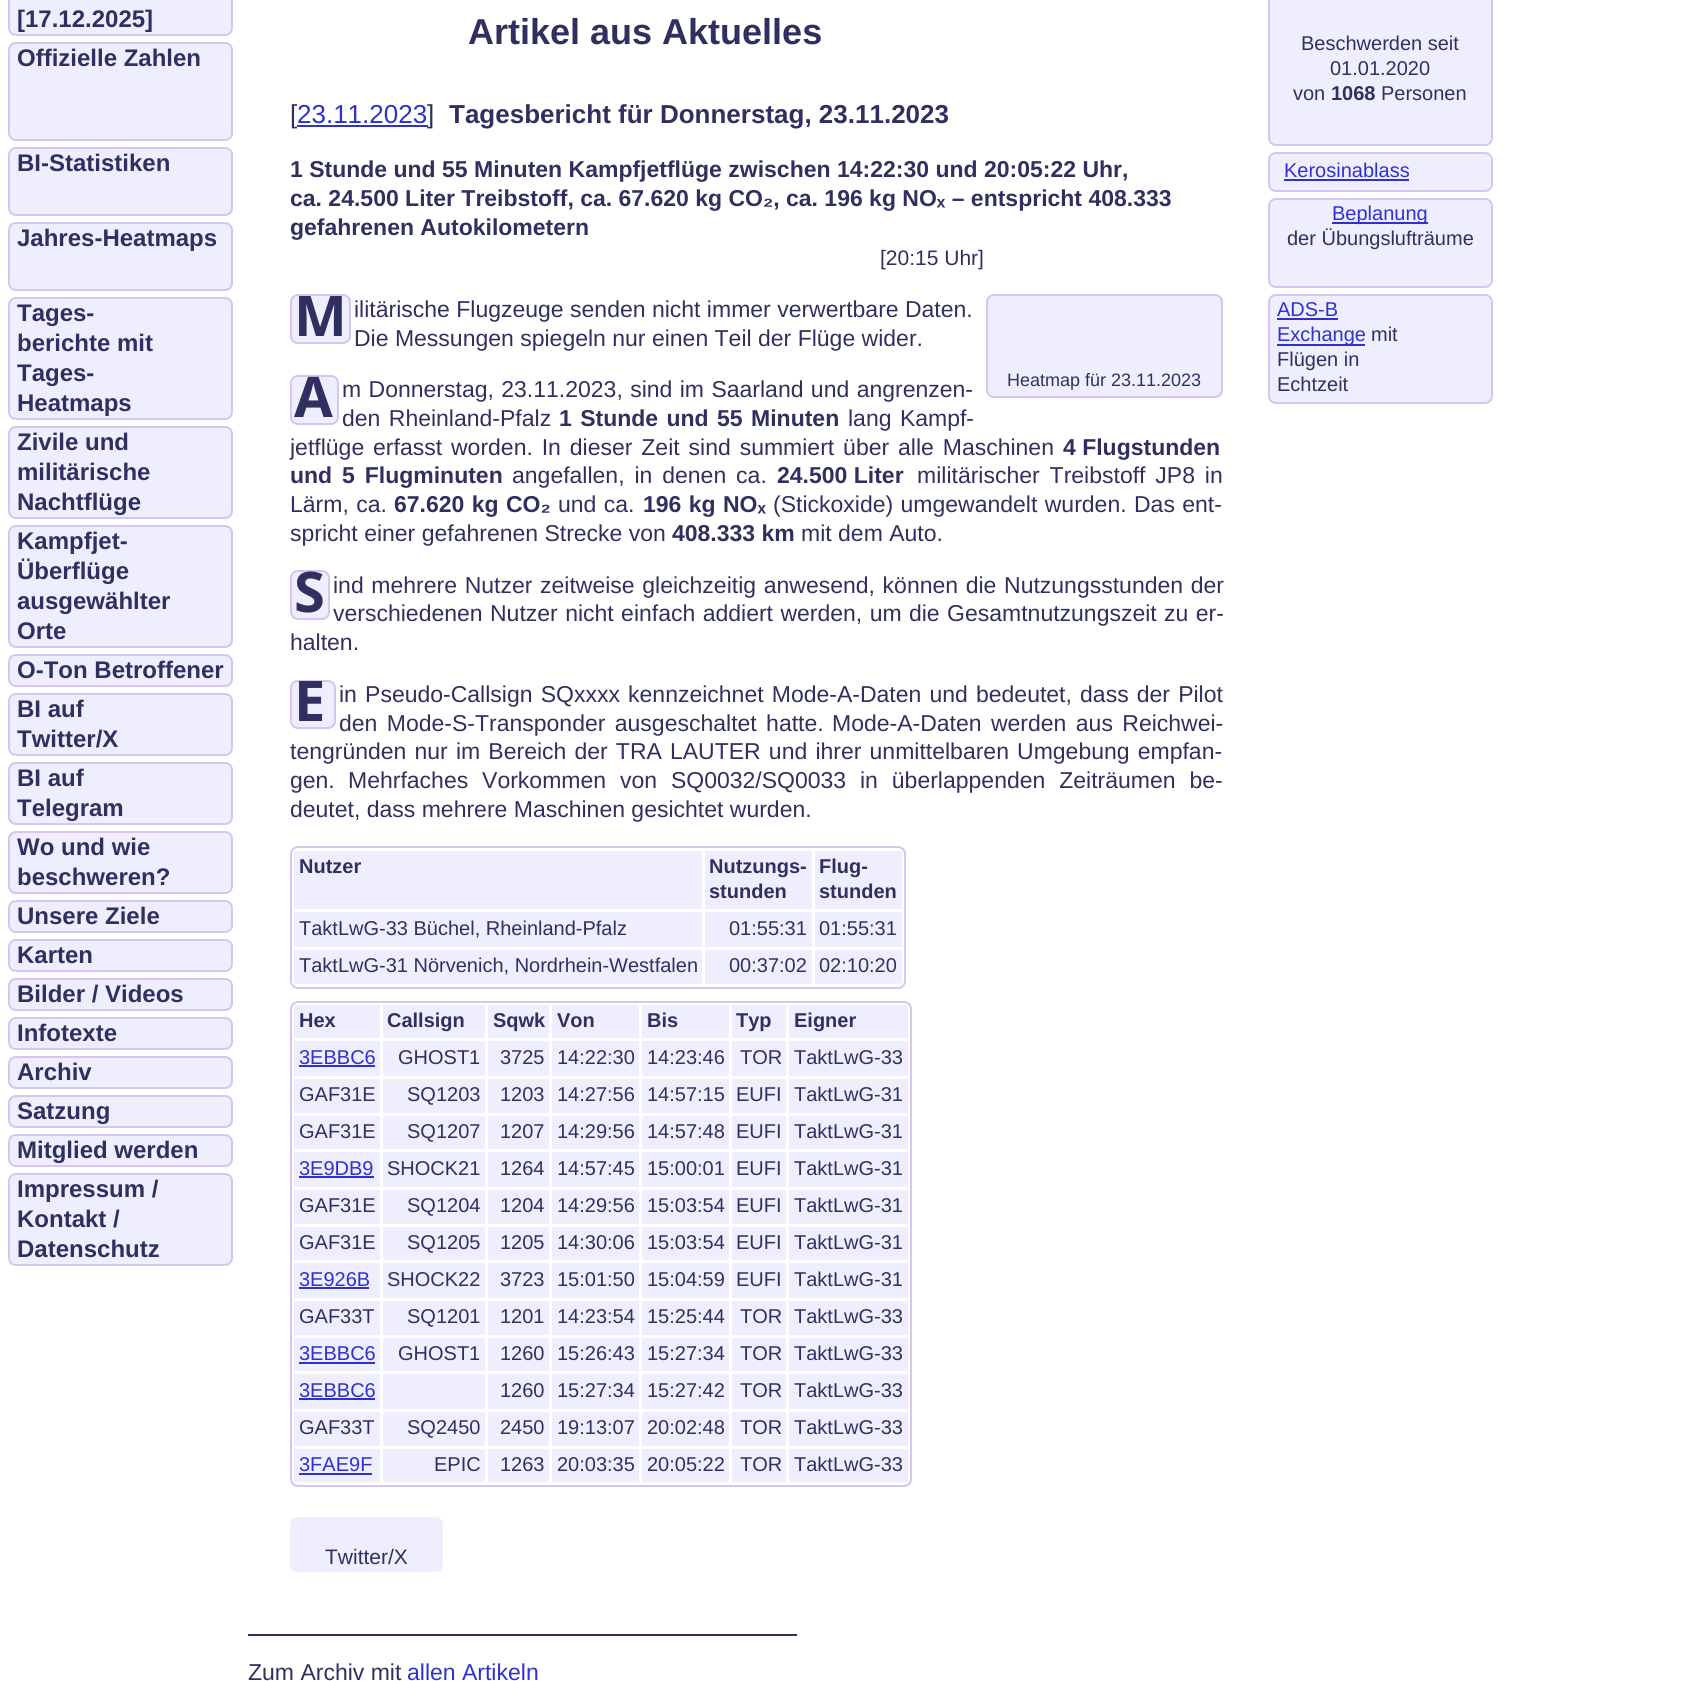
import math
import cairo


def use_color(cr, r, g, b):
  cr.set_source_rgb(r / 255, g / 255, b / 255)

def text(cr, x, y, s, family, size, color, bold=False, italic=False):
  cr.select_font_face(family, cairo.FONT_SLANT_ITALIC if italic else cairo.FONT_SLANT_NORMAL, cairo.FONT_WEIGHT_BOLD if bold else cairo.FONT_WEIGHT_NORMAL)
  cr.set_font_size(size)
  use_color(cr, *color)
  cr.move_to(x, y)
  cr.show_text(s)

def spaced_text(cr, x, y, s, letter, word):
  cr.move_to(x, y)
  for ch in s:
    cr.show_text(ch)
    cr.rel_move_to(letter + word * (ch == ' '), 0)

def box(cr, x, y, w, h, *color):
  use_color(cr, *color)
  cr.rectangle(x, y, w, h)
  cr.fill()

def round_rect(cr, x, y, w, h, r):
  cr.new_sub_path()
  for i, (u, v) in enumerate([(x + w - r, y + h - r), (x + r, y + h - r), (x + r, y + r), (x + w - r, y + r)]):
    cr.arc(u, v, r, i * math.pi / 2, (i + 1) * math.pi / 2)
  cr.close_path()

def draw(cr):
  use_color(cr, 255, 255, 255)
  cr.paint()
  use_color(cr, 238, 238, 255)
  round_rect(cr, 9, -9, 223, 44, 7)
  cr.fill_preserve()
  use_color(cr, 214, 196, 242)
  cr.stroke()
  use_color(cr, 238, 238, 255)
  round_rect(cr, 9, 43, 223, 97, 7)
  cr.fill_preserve()
  use_color(cr, 214, 196, 242)
  cr.stroke()
  use_color(cr, 238, 238, 255)
  round_rect(cr, 9, 148, 223, 67, 7)
  cr.fill_preserve()
  use_color(cr, 214, 196, 242)
  cr.stroke()
  use_color(cr, 238, 238, 255)
  round_rect(cr, 9, 223, 223, 67, 7)
  cr.fill_preserve()
  use_color(cr, 214, 196, 242)
  cr.stroke()
  use_color(cr, 238, 238, 255)
  round_rect(cr, 9, 298, 223, 121, 7)
  cr.fill_preserve()
  use_color(cr, 214, 196, 242)
  cr.stroke()
  use_color(cr, 238, 238, 255)
  round_rect(cr, 9, 427, 223, 91, 7)
  cr.fill_preserve()
  use_color(cr, 214, 196, 242)
  cr.stroke()
  use_color(cr, 238, 238, 255)
  round_rect(cr, 9, 526, 223, 121, 7)
  cr.fill_preserve()
  use_color(cr, 214, 196, 242)
  cr.stroke()
  use_color(cr, 238, 238, 255)
  round_rect(cr, 9, 655, 223, 31, 7)
  cr.fill_preserve()
  use_color(cr, 214, 196, 242)
  cr.stroke()
  use_color(cr, 238, 238, 255)
  round_rect(cr, 9, 694, 223, 61, 7)
  cr.fill_preserve()
  use_color(cr, 214, 196, 242)
  cr.stroke()
  use_color(cr, 238, 238, 255)
  round_rect(cr, 9, 763, 223, 61, 7)
  cr.fill_preserve()
  use_color(cr, 214, 196, 242)
  cr.stroke()
  use_color(cr, 238, 238, 255)
  round_rect(cr, 9, 832, 223, 61, 7)
  cr.fill_preserve()
  use_color(cr, 214, 196, 242)
  cr.stroke()
  use_color(cr, 238, 238, 255)
  round_rect(cr, 9, 901, 223, 31, 7)
  cr.fill_preserve()
  use_color(cr, 214, 196, 242)
  cr.stroke()
  use_color(cr, 238, 238, 255)
  round_rect(cr, 9, 940, 223, 31, 7)
  cr.fill_preserve()
  use_color(cr, 214, 196, 242)
  cr.stroke()
  use_color(cr, 238, 238, 255)
  round_rect(cr, 9, 979, 223, 31, 7)
  cr.fill_preserve()
  use_color(cr, 214, 196, 242)
  cr.stroke()
  use_color(cr, 238, 238, 255)
  round_rect(cr, 9, 1018, 223, 31, 7)
  cr.fill_preserve()
  use_color(cr, 214, 196, 242)
  cr.stroke()
  use_color(cr, 238, 238, 255)
  round_rect(cr, 9, 1057, 223, 31, 7)
  cr.fill_preserve()
  use_color(cr, 214, 196, 242)
  cr.stroke()
  use_color(cr, 238, 238, 255)
  round_rect(cr, 9, 1096, 223, 31, 7)
  cr.fill_preserve()
  use_color(cr, 214, 196, 242)
  cr.stroke()
  use_color(cr, 238, 238, 255)
  round_rect(cr, 9, 1135, 223, 31, 7)
  cr.fill_preserve()
  use_color(cr, 214, 196, 242)
  cr.stroke()
  use_color(cr, 238, 238, 255)
  round_rect(cr, 9, 1174, 223, 91, 7)
  cr.fill_preserve()
  use_color(cr, 214, 196, 242)
  cr.stroke()
  box(cr, 297, 125, 131, 2, 48, 48, 208)
  use_color(cr, 238, 238, 255)
  round_rect(cr, 291, 295, 59, 48, 7)
  cr.fill_preserve()
  use_color(cr, 214, 196, 242)
  cr.stroke()
  use_color(cr, 238, 238, 255)
  round_rect(cr, 987, 295, 235, 102, 7)
  cr.fill_preserve()
  use_color(cr, 214, 196, 242)
  cr.stroke()
  use_color(cr, 238, 238, 255)
  round_rect(cr, 291, 376, 47, 48, 7)
  cr.fill_preserve()
  use_color(cr, 214, 196, 242)
  cr.stroke()
  use_color(cr, 238, 238, 255)
  round_rect(cr, 291, 571, 38, 48, 7)
  cr.fill_preserve()
  use_color(cr, 214, 196, 242)
  cr.stroke()
  use_color(cr, 238, 238, 255)
  round_rect(cr, 291, 681, 44, 47, 7)
  cr.fill_preserve()
  use_color(cr, 214, 196, 242)
  cr.stroke()
  round_rect(cr, 291, 847, 614, 141, 7)
  cr.stroke()
  box(cr, 294, 851, 408, 58, 238, 238, 255)
  box(cr, 705, 851, 107, 58, 238, 238, 255)
  box(cr, 815, 851, 87, 58, 238, 238, 255)
  box(cr, 294, 912, 408, 35, 238, 238, 255)
  box(cr, 705, 912, 107, 35, 238, 238, 255)
  box(cr, 815, 912, 87, 35, 238, 238, 255)
  box(cr, 294, 950, 408, 34, 238, 238, 255)
  box(cr, 705, 950, 107, 34, 238, 238, 255)
  box(cr, 815, 950, 87, 34, 238, 238, 255)
  round_rect(cr, 291, 1002, 620, 484, 7)
  use_color(cr, 214, 196, 242)
  cr.stroke()
  box(cr, 294, 1005, 86, 33, 238, 238, 255)
  box(cr, 383, 1005, 102, 33, 238, 238, 255)
  box(cr, 488, 1005, 61, 33, 238, 238, 255)
  box(cr, 552, 1005, 87, 33, 238, 238, 255)
  box(cr, 642, 1005, 87, 33, 238, 238, 255)
  box(cr, 732, 1005, 54, 33, 238, 238, 255)
  box(cr, 789, 1005, 119, 33, 238, 238, 255)
  box(cr, 294, 1041, 86, 35, 238, 238, 255)
  box(cr, 299, 1065, 76, 2, 48, 48, 208)
  box(cr, 383, 1041, 102, 35, 238, 238, 255)
  box(cr, 488, 1041, 61, 35, 238, 238, 255)
  box(cr, 552, 1041, 87, 35, 238, 238, 255)
  box(cr, 642, 1041, 87, 35, 238, 238, 255)
  box(cr, 732, 1041, 54, 35, 238, 238, 255)
  box(cr, 789, 1041, 119, 35, 238, 238, 255)
  box(cr, 294, 1079, 86, 34, 238, 238, 255)
  box(cr, 383, 1079, 102, 34, 238, 238, 255)
  box(cr, 488, 1079, 61, 34, 238, 238, 255)
  box(cr, 552, 1079, 87, 34, 238, 238, 255)
  box(cr, 642, 1079, 87, 34, 238, 238, 255)
  box(cr, 732, 1079, 54, 34, 238, 238, 255)
  box(cr, 789, 1079, 119, 34, 238, 238, 255)
  box(cr, 294, 1116, 86, 33, 238, 238, 255)
  box(cr, 383, 1116, 102, 33, 238, 238, 255)
  box(cr, 488, 1116, 61, 33, 238, 238, 255)
  box(cr, 552, 1116, 87, 33, 238, 238, 255)
  box(cr, 642, 1116, 87, 33, 238, 238, 255)
  box(cr, 732, 1116, 54, 33, 238, 238, 255)
  box(cr, 789, 1116, 119, 33, 238, 238, 255)
  box(cr, 294, 1152, 86, 35, 238, 238, 255)
  box(cr, 299, 1176, 75, 2, 48, 48, 208)
  box(cr, 383, 1152, 102, 35, 238, 238, 255)
  box(cr, 488, 1152, 61, 35, 238, 238, 255)
  box(cr, 552, 1152, 87, 35, 238, 238, 255)
  box(cr, 642, 1152, 87, 35, 238, 238, 255)
  box(cr, 732, 1152, 54, 35, 238, 238, 255)
  box(cr, 789, 1152, 119, 35, 238, 238, 255)
  box(cr, 294, 1190, 86, 34, 238, 238, 255)
  box(cr, 383, 1190, 102, 34, 238, 238, 255)
  box(cr, 488, 1190, 61, 34, 238, 238, 255)
  box(cr, 552, 1190, 87, 34, 238, 238, 255)
  box(cr, 642, 1190, 87, 34, 238, 238, 255)
  box(cr, 732, 1190, 54, 34, 238, 238, 255)
  box(cr, 789, 1190, 119, 34, 238, 238, 255)
  box(cr, 294, 1227, 86, 33, 238, 238, 255)
  box(cr, 383, 1227, 102, 33, 238, 238, 255)
  box(cr, 488, 1227, 61, 33, 238, 238, 255)
  box(cr, 552, 1227, 87, 33, 238, 238, 255)
  box(cr, 642, 1227, 87, 33, 238, 238, 255)
  box(cr, 732, 1227, 54, 33, 238, 238, 255)
  box(cr, 789, 1227, 119, 33, 238, 238, 255)
  box(cr, 294, 1263, 86, 35, 238, 238, 255)
  box(cr, 299, 1287, 70, 2, 48, 48, 208)
  box(cr, 383, 1263, 102, 35, 238, 238, 255)
  box(cr, 488, 1263, 61, 35, 238, 238, 255)
  box(cr, 552, 1263, 87, 35, 238, 238, 255)
  box(cr, 642, 1263, 87, 35, 238, 238, 255)
  box(cr, 732, 1263, 54, 35, 238, 238, 255)
  box(cr, 789, 1263, 119, 35, 238, 238, 255)
  box(cr, 294, 1301, 86, 34, 238, 238, 255)
  box(cr, 383, 1301, 102, 34, 238, 238, 255)
  box(cr, 488, 1301, 61, 34, 238, 238, 255)
  box(cr, 552, 1301, 87, 34, 238, 238, 255)
  box(cr, 642, 1301, 87, 34, 238, 238, 255)
  box(cr, 732, 1301, 54, 34, 238, 238, 255)
  box(cr, 789, 1301, 119, 34, 238, 238, 255)
  box(cr, 294, 1338, 86, 33, 238, 238, 255)
  box(cr, 299, 1362, 76, 2, 48, 48, 208)
  box(cr, 383, 1338, 102, 33, 238, 238, 255)
  box(cr, 488, 1338, 61, 33, 238, 238, 255)
  box(cr, 552, 1338, 87, 33, 238, 238, 255)
  box(cr, 642, 1338, 87, 33, 238, 238, 255)
  box(cr, 732, 1338, 54, 33, 238, 238, 255)
  box(cr, 789, 1338, 119, 33, 238, 238, 255)
  box(cr, 294, 1374, 86, 35, 238, 238, 255)
  box(cr, 299, 1398, 76, 2, 48, 48, 208)
  box(cr, 383, 1374, 102, 35, 238, 238, 255)
  box(cr, 488, 1374, 61, 35, 238, 238, 255)
  box(cr, 552, 1374, 87, 35, 238, 238, 255)
  box(cr, 642, 1374, 87, 35, 238, 238, 255)
  box(cr, 732, 1374, 54, 35, 238, 238, 255)
  box(cr, 789, 1374, 119, 35, 238, 238, 255)
  box(cr, 294, 1412, 86, 34, 238, 238, 255)
  box(cr, 383, 1412, 102, 34, 238, 238, 255)
  box(cr, 488, 1412, 61, 34, 238, 238, 255)
  box(cr, 552, 1412, 87, 34, 238, 238, 255)
  box(cr, 642, 1412, 87, 34, 238, 238, 255)
  box(cr, 732, 1412, 54, 34, 238, 238, 255)
  box(cr, 789, 1412, 119, 34, 238, 238, 255)
  box(cr, 294, 1449, 86, 33, 238, 238, 255)
  box(cr, 299, 1473, 73, 2, 48, 48, 208)
  box(cr, 383, 1449, 102, 33, 238, 238, 255)
  box(cr, 488, 1449, 61, 33, 238, 238, 255)
  box(cr, 552, 1449, 87, 33, 238, 238, 255)
  box(cr, 642, 1449, 87, 33, 238, 238, 255)
  box(cr, 732, 1449, 54, 33, 238, 238, 255)
  box(cr, 789, 1449, 119, 33, 238, 238, 255)
  round_rect(cr, 291, 1518, 151, 53, 7)
  cr.stroke()
  box(cr, 291, 1518, 150, 53, 238, 238, 255)
  box(cr, 248, 1634, 549, 2, 48, 48, 96)
  use_color(cr, 238, 238, 255)
  round_rect(cr, 1269, -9, 223, 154, 7)
  cr.fill_preserve()
  use_color(cr, 214, 196, 242)
  cr.stroke()
  use_color(cr, 238, 238, 255)
  round_rect(cr, 1269, 153, 223, 38, 7)
  cr.fill_preserve()
  use_color(cr, 214, 196, 242)
  cr.stroke()
  box(cr, 1284, 179, 125, 2, 48, 48, 208)
  use_color(cr, 238, 238, 255)
  round_rect(cr, 1269, 199, 223, 88, 7)
  cr.fill_preserve()
  use_color(cr, 214, 196, 242)
  cr.stroke()
  box(cr, 1332, 222, 96, 2, 48, 48, 208)
  use_color(cr, 238, 238, 255)
  round_rect(cr, 1269, 295, 223, 108, 7)
  cr.fill_preserve()
  use_color(cr, 214, 196, 242)
  cr.stroke()
  box(cr, 1277, 318, 61, 2, 48, 48, 208)
  box(cr, 1277, 344, 88, 2, 48, 48, 208)
  text(cr, 17, 27, "[17.12.2025]", "Liberation Sans", 24, (48, 48, 96), bold=True)
  text(cr, 17, 66, "Offizielle Zahlen", "Liberation Sans", 24, (48, 48, 96), bold=True)
  text(cr, 17, 171, "BI-Statistiken", "Liberation Sans", 24, (48, 48, 96), bold=True)
  text(cr, 17, 246, "Jahres-Heatmaps", "Liberation Sans", 24, (48, 48, 96), bold=True)
  text(cr, 17, 321, "Tages-", "Liberation Sans", 24, (48, 48, 96), bold=True)
  text(cr, 17, 351, "berichte mit", "Liberation Sans", 24, (48, 48, 96), bold=True)
  text(cr, 17, 381, "Tages-", "Liberation Sans", 24, (48, 48, 96), bold=True)
  text(cr, 17, 411, "Heatmaps", "Liberation Sans", 24, (48, 48, 96), bold=True)
  text(cr, 17, 450, "Zivile und", "Liberation Sans", 24, (48, 48, 96), bold=True)
  text(cr, 17, 480, "militärische", "Liberation Sans", 24, (48, 48, 96), bold=True)
  text(cr, 17, 510, "Nachtflüge", "Liberation Sans", 24, (48, 48, 96), bold=True)
  text(cr, 17, 549, "Kampfjet-", "Liberation Sans", 24, (48, 48, 96), bold=True)
  text(cr, 17, 579, "Überflüge", "Liberation Sans", 24, (48, 48, 96), bold=True)
  text(cr, 17, 609, "ausgewählter", "Liberation Sans", 24, (48, 48, 96), bold=True)
  text(cr, 17, 639, "Orte", "Liberation Sans", 24, (48, 48, 96), bold=True)
  text(cr, 17, 678, "O-Ton Betroffener", "Liberation Sans", 24, (48, 48, 96), bold=True)
  text(cr, 17, 717, "BI auf", "Liberation Sans", 24, (48, 48, 96), bold=True)
  text(cr, 17, 747, "Twitter/X", "Liberation Sans", 24, (48, 48, 96), bold=True)
  text(cr, 17, 786, "BI auf", "Liberation Sans", 24, (48, 48, 96), bold=True)
  text(cr, 17, 816, "Telegram", "Liberation Sans", 24, (48, 48, 96), bold=True)
  text(cr, 17, 855, "Wo und wie", "Liberation Sans", 24, (48, 48, 96), bold=True)
  text(cr, 17, 885, "beschweren?", "Liberation Sans", 24, (48, 48, 96), bold=True)
  text(cr, 17, 924, "Unsere Ziele", "Liberation Sans", 24, (48, 48, 96), bold=True)
  text(cr, 17, 963, "Karten", "Liberation Sans", 24, (48, 48, 96), bold=True)
  text(cr, 17, 1002, "Bilder / Videos", "Liberation Sans", 24, (48, 48, 96), bold=True)
  text(cr, 17, 1041, "Infotexte", "Liberation Sans", 24, (48, 48, 96), bold=True)
  text(cr, 17, 1080, "Archiv", "Liberation Sans", 24, (48, 48, 96), bold=True)
  text(cr, 17, 1119, "Satzung", "Liberation Sans", 24, (48, 48, 96), bold=True)
  text(cr, 17, 1158, "Mitglied werden", "Liberation Sans", 24, (48, 48, 96), bold=True)
  text(cr, 17, 1197, "Impressum /", "Liberation Sans", 24, (48, 48, 96), bold=True)
  text(cr, 17, 1227, "Kontakt /", "Liberation Sans", 24, (48, 48, 96), bold=True)
  text(cr, 17, 1257, "Datenschutz", "Liberation Sans", 24, (48, 48, 96), bold=True)
  text(cr, 468, 44, "Artikel aus Aktuelles", "Liberation Sans", 36, (48, 48, 96), bold=True)
  text(cr, 290, 123, "[", "Liberation Sans", 26, (48, 48, 96))
  text(cr, 297, 123, "23.11.2023", "Liberation Sans", 26, (48, 48, 208))
  text(cr, 427, 123, "]", "Liberation Sans", 26, (48, 48, 96))
  text(cr, 449, 123, "Tagesbericht für Donnerstag, 23.11.2023", "Liberation Sans", 26, (48, 48, 96), bold=True)
  text(cr, 290, 177, "1 Stunde und 55 Minuten Kampfjetflüge zwischen 14:22:30 und 20:05:22 Uhr,", "Liberation Sans", 23, (48, 48, 96), bold=True)
  text(cr, 290, 206, "ca. 24.500 Liter Treibstoff, ca. 67.620 kg CO₂, ca. 196 kg NOₓ – entspricht 408.333", "Liberation Sans", 23, (48, 48, 96), bold=True)
  text(cr, 290, 235, "gefahrenen Autokilometern", "Liberation Sans", 23, (48, 48, 96), bold=True)
  text(cr, 880, 265, "[20:15 Uhr]", "Liberation Sans", 21, (48, 48, 96))
  text(cr, 294, 336, "M", "Noto Sans", 56, (48, 48, 96), bold=True)
  text(cr, 354, 317, "ilitärische Flugzeuge senden nicht immer verwertbare Daten.", "Liberation Sans", 23, (48, 48, 96))
  text(cr, 354, 346, "Die Messungen spiegeln nur einen Teil der Flüge wider.", "Liberation Sans", 23, (48, 48, 96))
  text(cr, 1007, 386, "Heatmap für 23.11.2023", "Liberation Sans", 18, (48, 48, 96))
  text(cr, 294, 417, "A", "Noto Sans", 56, (48, 48, 96), bold=True)
  cr.select_font_face("Liberation Sans")
  cr.set_font_size(23)
  spaced_text(cr, 342, 397, "m Donnerstag, 23.11.2023, sind im Saarland und angrenzen-", 0, 1)
  spaced_text(cr, 342, 426, "den Rheinland-Pfalz", 0, 2)
  cr.select_font_face("Liberation Sans", cairo.FONT_SLANT_NORMAL, cairo.FONT_WEIGHT_BOLD)
  spaced_text(cr, 559, 426, "1 Stunde und 55 Minuten", 0, 2)
  cr.select_font_face("Liberation Sans")
  spaced_text(cr, 848, 426, "lang Kampf-", 0, 2)
  spaced_text(cr, 290, 455, "jetflüge erfasst worden. In dieser Zeit sind summiert über alle Maschinen", 0, 2.5)
  text(cr, 1063, 455, "4 Flugstunden", "Liberation Sans", 23, (48, 48, 96), bold=True)
  spaced_text(cr, 290, 483, "und 5 Flugminuten", 0, 3.5)
  cr.select_font_face("Liberation Sans")
  spaced_text(cr, 512, 483, "angefallen, in denen ca.", 0, 3.5)
  text(cr, 777, 483, "24.500 Liter", "Liberation Sans", 23, (48, 48, 96), bold=True)
  cr.select_font_face("Liberation Sans")
  spaced_text(cr, 917, 483, "militärischer Treibstoff JP8 in", 0, 3.5)
  spaced_text(cr, 290, 512, "Lärm, ca.", 0, 1)
  cr.select_font_face("Liberation Sans", cairo.FONT_SLANT_NORMAL, cairo.FONT_WEIGHT_BOLD)
  spaced_text(cr, 394, 512, "67.620 kg CO₂", 0, 1)
  cr.select_font_face("Liberation Sans")
  spaced_text(cr, 558, 512, "und ca.", 0, 1)
  cr.select_font_face("Liberation Sans", cairo.FONT_SLANT_NORMAL, cairo.FONT_WEIGHT_BOLD)
  spaced_text(cr, 643, 512, "196 kg NOₓ", 0, 1)
  cr.select_font_face("Liberation Sans")
  spaced_text(cr, 773, 512, "(Stickoxide) umgewandelt wurden. Das ent-", 0, 1)
  text(cr, 290, 541, "spricht einer gefahrenen Strecke von", "Liberation Sans", 23, (48, 48, 96))
  text(cr, 672, 541, "408.333 km", "Liberation Sans", 23, (48, 48, 96), bold=True)
  text(cr, 801, 541, "mit dem Auto.", "Liberation Sans", 23, (48, 48, 96))
  text(cr, 294, 612, "S", "Noto Sans", 56, (48, 48, 96), bold=True)
  cr.select_font_face("Liberation Sans")
  cr.set_font_size(23)
  spaced_text(cr, 333, 593, "ind mehrere Nutzer zeitweise gleichzeitig anwesend, können die Nutzungsstunden der", 0, 1.25)
  spaced_text(cr, 333, 621, "verschiedenen Nutzer nicht einfach addiert werden, um die Gesamtnutzungszeit zu er-", 0, 1)
  text(cr, 290, 650, "halten.", "Liberation Sans", 23, (48, 48, 96))
  text(cr, 294, 721, "E", "Noto Sans", 56, (48, 48, 96), bold=True)
  cr.select_font_face("Liberation Sans")
  cr.set_font_size(23)
  spaced_text(cr, 339, 702, "in Pseudo-Callsign SQxxxx kennzeichnet Mode-A-Daten und bedeutet, dass der Pilot", 0, 1.75)
  spaced_text(cr, 339, 731, "den Mode-S-Transponder ausgeschaltet hatte.", 0, 3)
  spaced_text(cr, 832, 731, "Mode-A-Daten werden aus Reichwei-", 0, 3)
  spaced_text(cr, 290, 759, "tengründen nur im Bereich der TRA LAUTER und ihrer unmittelbaren Umgebung empfan-", 0, 1.75)
  text(cr, 290, 788, "gen.", "Liberation Sans", 23, (48, 48, 96))
  spaced_text(cr, 348, 788, "Mehrfaches Vorkommen von SQ0032/SQ0033 in überlappenden Zeiträumen be-", 0, 7.5)
  text(cr, 290, 817, "deutet, dass mehrere Maschinen gesichtet wurden.", "Liberation Sans", 23, (48, 48, 96))
  text(cr, 299, 873, "Nutzer", "Liberation Sans", 20, (48, 48, 96), bold=True)
  text(cr, 709, 873, "Nutzungs-", "Liberation Sans", 20, (48, 48, 96), bold=True)
  text(cr, 709, 898, "stunden", "Liberation Sans", 20, (48, 48, 96), bold=True)
  text(cr, 819, 873, "Flug-", "Liberation Sans", 20, (48, 48, 96), bold=True)
  text(cr, 819, 898, "stunden", "Liberation Sans", 20, (48, 48, 96), bold=True)
  text(cr, 299, 935, "TaktLwG-33 Büchel, Rheinland-Pfalz", "Liberation Sans", 20, (48, 48, 96))
  text(cr, 729, 935, "01:55:31", "Liberation Sans", 20, (48, 48, 96))
  text(cr, 819, 935, "01:55:31", "Liberation Sans", 20, (48, 48, 96))
  text(cr, 299, 972, "TaktLwG-31 Nörvenich, Nordrhein-Westfalen", "Liberation Sans", 20, (48, 48, 96))
  text(cr, 729, 972, "00:37:02", "Liberation Sans", 20, (48, 48, 96))
  text(cr, 819, 972, "02:10:20", "Liberation Sans", 20, (48, 48, 96))
  text(cr, 299, 1027, "Hex", "Liberation Sans", 20, (48, 48, 96), bold=True)
  text(cr, 387, 1027, "Callsign", "Liberation Sans", 20, (48, 48, 96), bold=True)
  text(cr, 493, 1027, "Sqwk", "Liberation Sans", 20, (48, 48, 96), bold=True)
  text(cr, 557, 1027, "Von", "Liberation Sans", 20, (48, 48, 96), bold=True)
  text(cr, 647, 1027, "Bis", "Liberation Sans", 20, (48, 48, 96), bold=True)
  text(cr, 736, 1027, "Typ", "Liberation Sans", 20, (48, 48, 96), bold=True)
  text(cr, 794, 1027, "Eigner", "Liberation Sans", 20, (48, 48, 96), bold=True)
  text(cr, 299, 1064, "3EBBC6", "Liberation Sans", 20, (48, 48, 208))
  text(cr, 398, 1064, "GHOST1", "Liberation Sans", 20, (48, 48, 96))
  text(cr, 500, 1064, "3725", "Liberation Sans", 20, (48, 48, 96))
  text(cr, 557, 1064, "14:22:30", "Liberation Sans", 20, (48, 48, 96))
  text(cr, 647, 1064, "14:23:46", "Liberation Sans", 20, (48, 48, 96))
  text(cr, 740, 1064, "TOR", "Liberation Sans", 20, (48, 48, 96))
  text(cr, 794, 1064, "TaktLwG-33", "Liberation Sans", 20, (48, 48, 96))
  text(cr, 299, 1101, "GAF31E", "Liberation Sans", 20, (48, 48, 96))
  text(cr, 407, 1101, "SQ1203", "Liberation Sans", 20, (48, 48, 96))
  text(cr, 500, 1101, "1203", "Liberation Sans", 20, (48, 48, 96))
  text(cr, 557, 1101, "14:27:56", "Liberation Sans", 20, (48, 48, 96))
  text(cr, 647, 1101, "14:57:15", "Liberation Sans", 20, (48, 48, 96))
  text(cr, 736, 1101, "EUFI", "Liberation Sans", 20, (48, 48, 96))
  text(cr, 794, 1101, "TaktLwG-31", "Liberation Sans", 20, (48, 48, 96))
  text(cr, 299, 1138, "GAF31E", "Liberation Sans", 20, (48, 48, 96))
  text(cr, 407, 1138, "SQ1207", "Liberation Sans", 20, (48, 48, 96))
  text(cr, 500, 1138, "1207", "Liberation Sans", 20, (48, 48, 96))
  text(cr, 557, 1138, "14:29:56", "Liberation Sans", 20, (48, 48, 96))
  text(cr, 647, 1138, "14:57:48", "Liberation Sans", 20, (48, 48, 96))
  text(cr, 736, 1138, "EUFI", "Liberation Sans", 20, (48, 48, 96))
  text(cr, 794, 1138, "TaktLwG-31", "Liberation Sans", 20, (48, 48, 96))
  text(cr, 299, 1175, "3E9DB9", "Liberation Sans", 20, (48, 48, 208))
  text(cr, 387, 1175, "SHOCK21", "Liberation Sans", 20, (48, 48, 96))
  text(cr, 500, 1175, "1264", "Liberation Sans", 20, (48, 48, 96))
  text(cr, 557, 1175, "14:57:45", "Liberation Sans", 20, (48, 48, 96))
  text(cr, 647, 1175, "15:00:01", "Liberation Sans", 20, (48, 48, 96))
  text(cr, 736, 1175, "EUFI", "Liberation Sans", 20, (48, 48, 96))
  text(cr, 794, 1175, "TaktLwG-31", "Liberation Sans", 20, (48, 48, 96))
  text(cr, 299, 1212, "GAF31E", "Liberation Sans", 20, (48, 48, 96))
  text(cr, 407, 1212, "SQ1204", "Liberation Sans", 20, (48, 48, 96))
  text(cr, 500, 1212, "1204", "Liberation Sans", 20, (48, 48, 96))
  text(cr, 557, 1212, "14:29:56", "Liberation Sans", 20, (48, 48, 96))
  text(cr, 647, 1212, "15:03:54", "Liberation Sans", 20, (48, 48, 96))
  text(cr, 736, 1212, "EUFI", "Liberation Sans", 20, (48, 48, 96))
  text(cr, 794, 1212, "TaktLwG-31", "Liberation Sans", 20, (48, 48, 96))
  text(cr, 299, 1249, "GAF31E", "Liberation Sans", 20, (48, 48, 96))
  text(cr, 407, 1249, "SQ1205", "Liberation Sans", 20, (48, 48, 96))
  text(cr, 500, 1249, "1205", "Liberation Sans", 20, (48, 48, 96))
  text(cr, 557, 1249, "14:30:06", "Liberation Sans", 20, (48, 48, 96))
  text(cr, 647, 1249, "15:03:54", "Liberation Sans", 20, (48, 48, 96))
  text(cr, 736, 1249, "EUFI", "Liberation Sans", 20, (48, 48, 96))
  text(cr, 794, 1249, "TaktLwG-31", "Liberation Sans", 20, (48, 48, 96))
  text(cr, 299, 1286, "3E926B", "Liberation Sans", 20, (48, 48, 208))
  text(cr, 387, 1286, "SHOCK22", "Liberation Sans", 20, (48, 48, 96))
  text(cr, 500, 1286, "3723", "Liberation Sans", 20, (48, 48, 96))
  text(cr, 557, 1286, "15:01:50", "Liberation Sans", 20, (48, 48, 96))
  text(cr, 647, 1286, "15:04:59", "Liberation Sans", 20, (48, 48, 96))
  text(cr, 736, 1286, "EUFI", "Liberation Sans", 20, (48, 48, 96))
  text(cr, 794, 1286, "TaktLwG-31", "Liberation Sans", 20, (48, 48, 96))
  text(cr, 299, 1323, "GAF33T", "Liberation Sans", 20, (48, 48, 96))
  text(cr, 407, 1323, "SQ1201", "Liberation Sans", 20, (48, 48, 96))
  text(cr, 500, 1323, "1201", "Liberation Sans", 20, (48, 48, 96))
  text(cr, 557, 1323, "14:23:54", "Liberation Sans", 20, (48, 48, 96))
  text(cr, 647, 1323, "15:25:44", "Liberation Sans", 20, (48, 48, 96))
  text(cr, 740, 1323, "TOR", "Liberation Sans", 20, (48, 48, 96))
  text(cr, 794, 1323, "TaktLwG-33", "Liberation Sans", 20, (48, 48, 96))
  text(cr, 299, 1360, "3EBBC6", "Liberation Sans", 20, (48, 48, 208))
  text(cr, 398, 1360, "GHOST1", "Liberation Sans", 20, (48, 48, 96))
  text(cr, 500, 1360, "1260", "Liberation Sans", 20, (48, 48, 96))
  text(cr, 557, 1360, "15:26:43", "Liberation Sans", 20, (48, 48, 96))
  text(cr, 647, 1360, "15:27:34", "Liberation Sans", 20, (48, 48, 96))
  text(cr, 740, 1360, "TOR", "Liberation Sans", 20, (48, 48, 96))
  text(cr, 794, 1360, "TaktLwG-33", "Liberation Sans", 20, (48, 48, 96))
  text(cr, 299, 1397, "3EBBC6", "Liberation Sans", 20, (48, 48, 208))
  text(cr, 500, 1397, "1260", "Liberation Sans", 20, (48, 48, 96))
  text(cr, 557, 1397, "15:27:34", "Liberation Sans", 20, (48, 48, 96))
  text(cr, 647, 1397, "15:27:42", "Liberation Sans", 20, (48, 48, 96))
  text(cr, 740, 1397, "TOR", "Liberation Sans", 20, (48, 48, 96))
  text(cr, 794, 1397, "TaktLwG-33", "Liberation Sans", 20, (48, 48, 96))
  text(cr, 299, 1434, "GAF33T", "Liberation Sans", 20, (48, 48, 96))
  text(cr, 407, 1434, "SQ2450", "Liberation Sans", 20, (48, 48, 96))
  text(cr, 500, 1434, "2450", "Liberation Sans", 20, (48, 48, 96))
  text(cr, 557, 1434, "19:13:07", "Liberation Sans", 20, (48, 48, 96))
  text(cr, 647, 1434, "20:02:48", "Liberation Sans", 20, (48, 48, 96))
  text(cr, 740, 1434, "TOR", "Liberation Sans", 20, (48, 48, 96))
  text(cr, 794, 1434, "TaktLwG-33", "Liberation Sans", 20, (48, 48, 96))
  text(cr, 299, 1471, "3FAE9F", "Liberation Sans", 20, (48, 48, 208))
  text(cr, 434, 1471, "EPIC", "Liberation Sans", 20, (48, 48, 96))
  text(cr, 500, 1471, "1263", "Liberation Sans", 20, (48, 48, 96))
  text(cr, 557, 1471, "20:03:35", "Liberation Sans", 20, (48, 48, 96))
  text(cr, 647, 1471, "20:05:22", "Liberation Sans", 20, (48, 48, 96))
  text(cr, 740, 1471, "TOR", "Liberation Sans", 20, (48, 48, 96))
  text(cr, 794, 1471, "TaktLwG-33", "Liberation Sans", 20, (48, 48, 96))
  text(cr, 325, 1564, "Twitter/X", "Liberation Sans", 21, (48, 48, 96))
  text(cr, 248, 1680, "Zum Archiv mit", "Liberation Sans", 23, (48, 48, 96))
  text(cr, 407, 1680, "allen Artikeln", "Liberation Sans", 23, (48, 48, 208))
  text(cr, 1301, 50, "Beschwerden seit", "Liberation Sans", 20, (48, 48, 96))
  text(cr, 1330, 75, "01.01.2020", "Liberation Sans", 20, (48, 48, 96))
  text(cr, 1293, 100, "von", "Liberation Sans", 20, (48, 48, 96))
  text(cr, 1331, 100, "1068", "Liberation Sans", 20, (48, 48, 96), bold=True)
  text(cr, 1381, 100, "Personen", "Liberation Sans", 20, (48, 48, 96))
  text(cr, 1284, 177, "Kerosinablass", "Liberation Sans", 20, (48, 48, 208))
  text(cr, 1332, 220, "Beplanung", "Liberation Sans", 20, (48, 48, 208))
  text(cr, 1287, 245, "der Übungslufträume", "Liberation Sans", 20, (48, 48, 96))
  text(cr, 1277, 316, "ADS-B", "Liberation Sans", 20, (48, 48, 208))
  text(cr, 1277, 341, "Exchange", "Liberation Sans", 20, (48, 48, 208))
  text(cr, 1371, 341, "mit", "Liberation Sans", 20, (48, 48, 96))
  text(cr, 1277, 366, "Flügen in", "Liberation Sans", 20, (48, 48, 96))
  text(cr, 1277, 391, "Echtzeit", "Liberation Sans", 20, (48, 48, 96))


surface = cairo.ImageSurface(cairo.FORMAT_RGB24, 1705, 1681)
cr = cairo.Context(surface)
options = cairo.FontOptions()
options.set_hint_metrics(cairo.HINT_METRICS_OFF)
options.set_hint_style(cairo.HINT_STYLE_NONE)
cr.set_font_options(options)
cr.set_miter_limit(4)
draw(cr)
surface.write_to_png("out.png")
